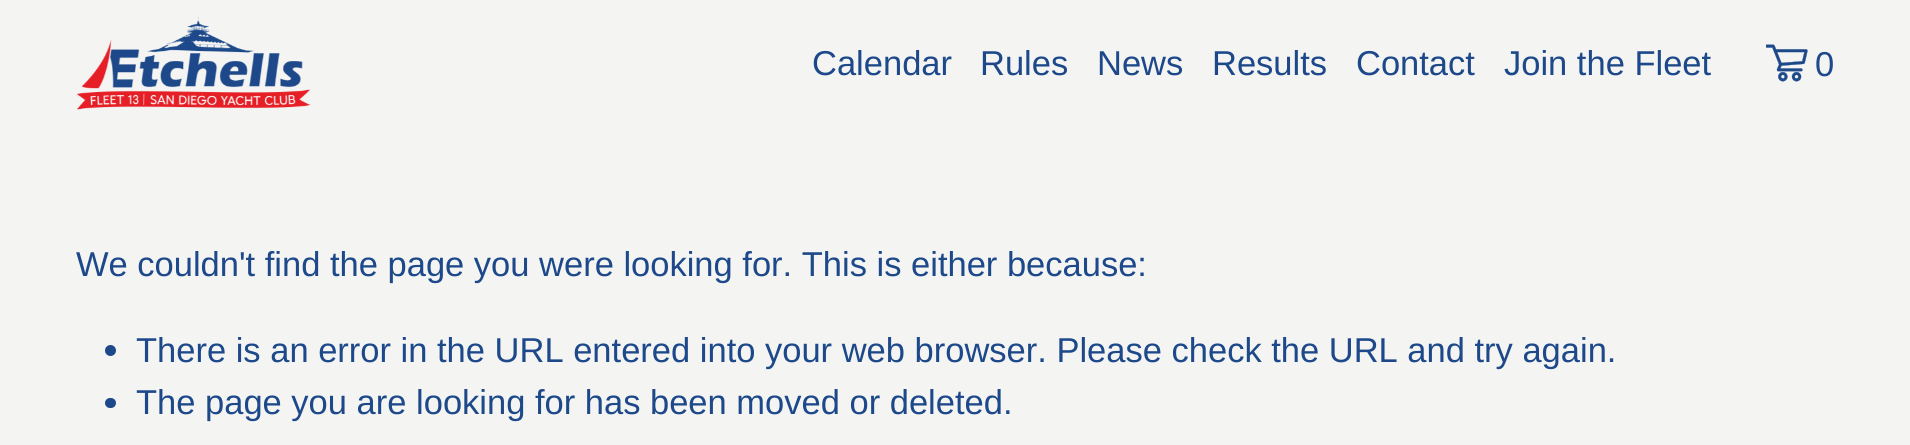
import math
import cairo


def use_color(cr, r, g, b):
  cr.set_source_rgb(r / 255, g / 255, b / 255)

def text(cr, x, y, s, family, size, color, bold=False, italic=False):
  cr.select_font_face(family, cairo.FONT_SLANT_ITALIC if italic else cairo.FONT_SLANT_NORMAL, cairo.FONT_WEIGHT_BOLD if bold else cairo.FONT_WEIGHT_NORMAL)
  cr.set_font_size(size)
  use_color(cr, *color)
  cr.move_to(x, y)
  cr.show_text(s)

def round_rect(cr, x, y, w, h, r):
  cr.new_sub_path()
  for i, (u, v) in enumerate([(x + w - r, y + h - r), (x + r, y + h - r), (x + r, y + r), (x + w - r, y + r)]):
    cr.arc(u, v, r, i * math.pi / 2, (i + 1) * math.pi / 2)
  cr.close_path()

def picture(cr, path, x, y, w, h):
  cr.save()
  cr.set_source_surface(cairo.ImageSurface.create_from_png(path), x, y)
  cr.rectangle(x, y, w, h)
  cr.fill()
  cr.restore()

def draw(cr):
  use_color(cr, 244, 244, 243)
  cr.paint()
  picture(cr, "img_01.png", 76, 16, 235, 94)
  picture(cr, "img_02.png", 1766, 44, 42, 38)
  use_color(cr, 29, 73, 138)
  cr.arc(110.5, 350.5, 5.5, 0, 2 * math.pi)
  cr.fill()
  round_rect(cr, 105, 398, 11, 10, 5)
  cr.fill()
  text(cr, 812, 75, "Calendar", "Arimo", 34.5, (29, 73, 138))
  text(cr, 980, 75, "Rules", "Arimo", 34.5, (29, 73, 138))
  text(cr, 1097, 75, "News", "Arimo", 34.5, (29, 73, 138))
  text(cr, 1212, 75, "Results", "Arimo", 34.5, (29, 73, 138))
  text(cr, 1356, 75, "Contact", "Arimo", 34.5, (29, 73, 138))
  text(cr, 1504, 75, "Join the Fleet", "Arimo", 34.5, (29, 73, 138))
  text(cr, 1815, 76, "0", "Arimo", 34.5, (29, 73, 138))
  text(cr, 76, 276, "We couldn't find the page you were looking for. This is either because:", "Arimo", 34.5, (29, 73, 138))
  text(cr, 136, 362, "There is an error in the URL entered into your web browser. Please check the URL and try again.", "Arimo", 34.5, (29, 73, 138))
  text(cr, 136, 414, "The page you are looking for has been moved or deleted.", "Arimo", 34.5, (29, 73, 138))


surface = cairo.ImageSurface(cairo.FORMAT_RGB24, 1910, 445)
cr = cairo.Context(surface)
options = cairo.FontOptions()
options.set_hint_metrics(cairo.HINT_METRICS_OFF)
options.set_hint_style(cairo.HINT_STYLE_NONE)
cr.set_font_options(options)
cr.set_miter_limit(4)
draw(cr)
surface.write_to_png("out.png")
